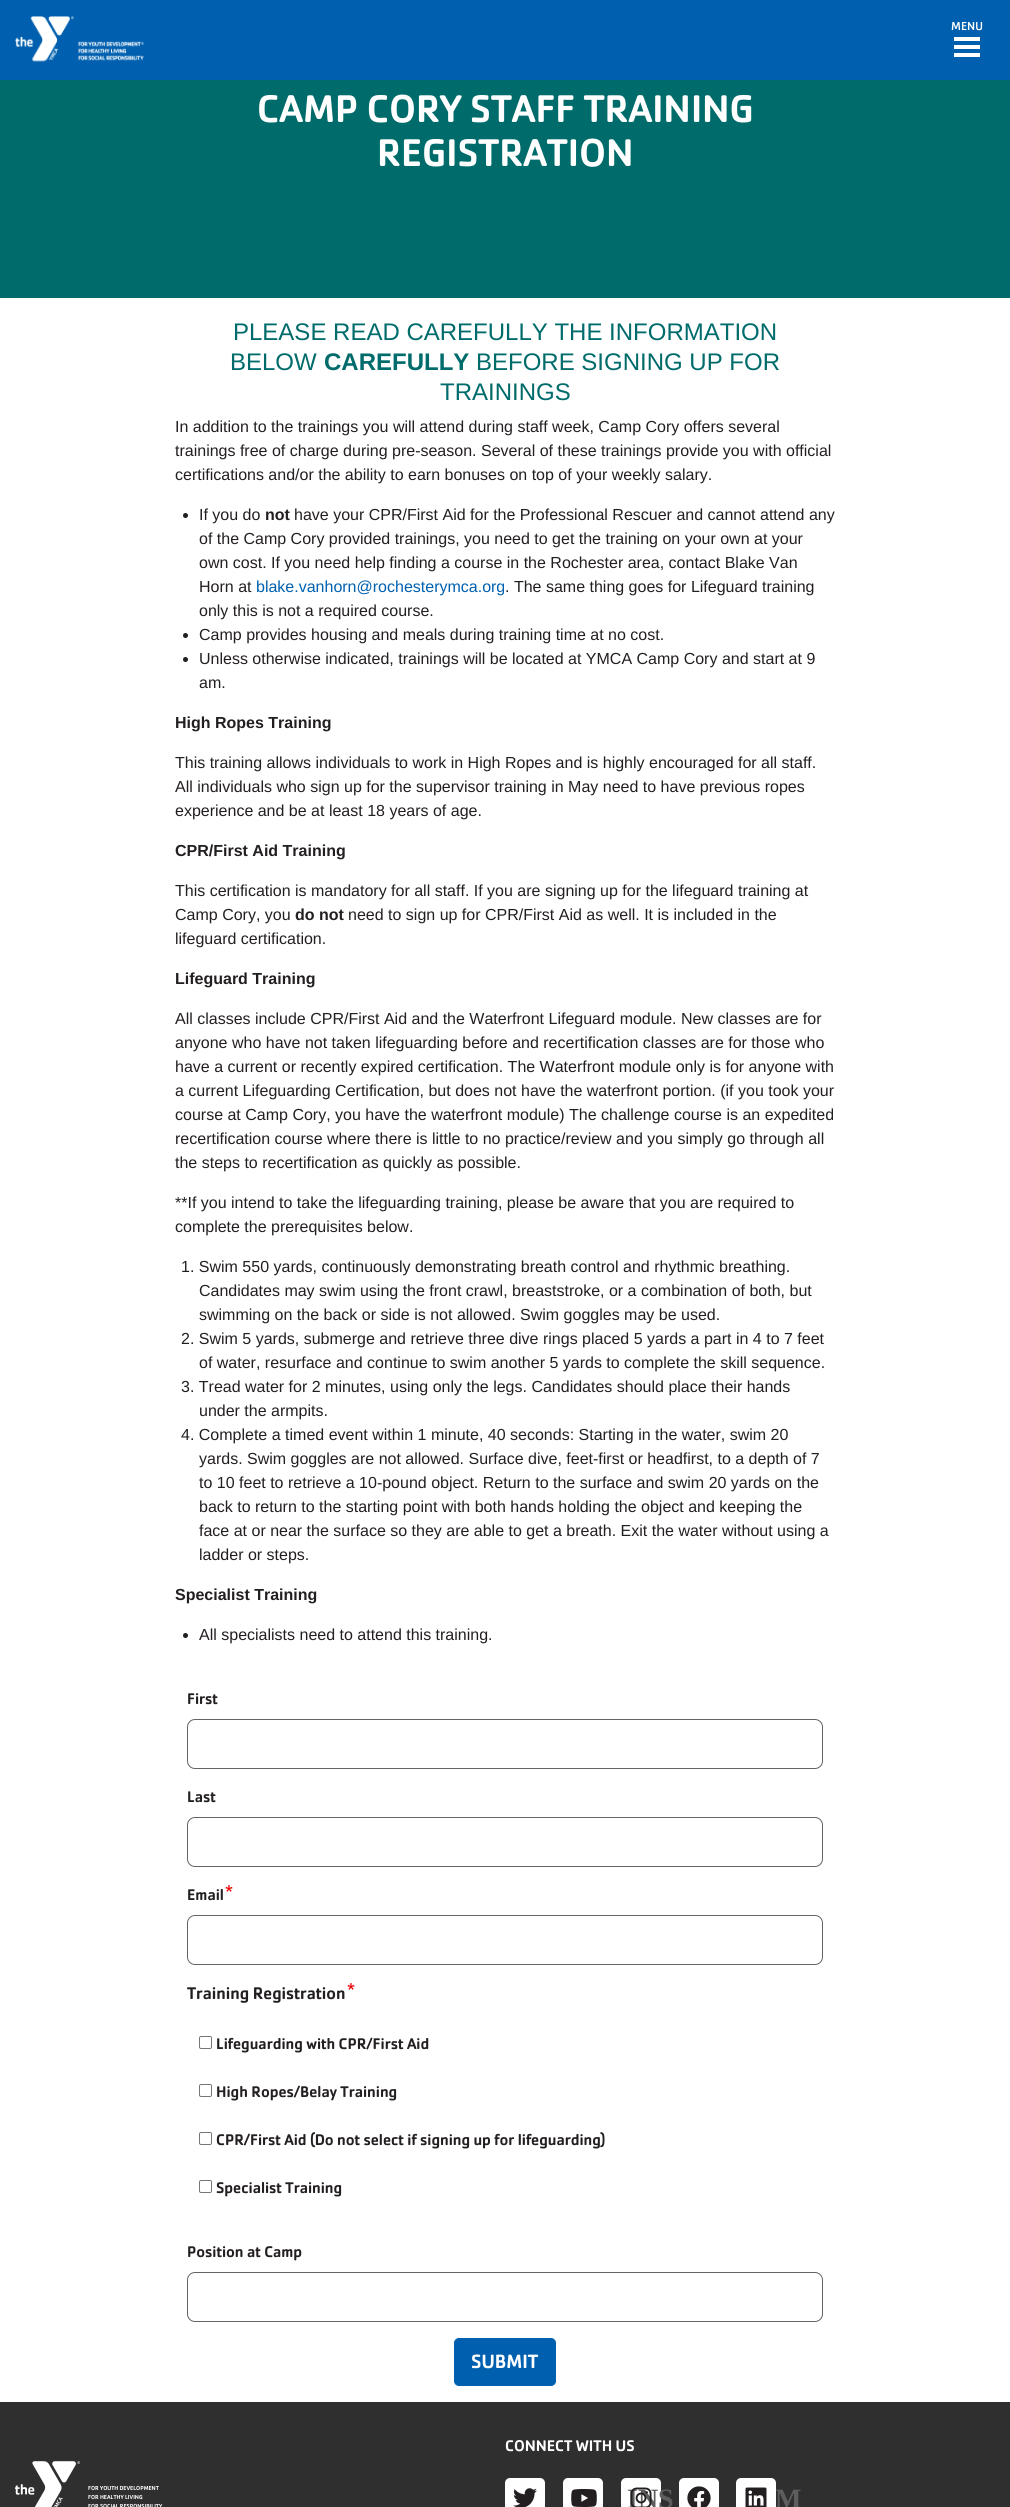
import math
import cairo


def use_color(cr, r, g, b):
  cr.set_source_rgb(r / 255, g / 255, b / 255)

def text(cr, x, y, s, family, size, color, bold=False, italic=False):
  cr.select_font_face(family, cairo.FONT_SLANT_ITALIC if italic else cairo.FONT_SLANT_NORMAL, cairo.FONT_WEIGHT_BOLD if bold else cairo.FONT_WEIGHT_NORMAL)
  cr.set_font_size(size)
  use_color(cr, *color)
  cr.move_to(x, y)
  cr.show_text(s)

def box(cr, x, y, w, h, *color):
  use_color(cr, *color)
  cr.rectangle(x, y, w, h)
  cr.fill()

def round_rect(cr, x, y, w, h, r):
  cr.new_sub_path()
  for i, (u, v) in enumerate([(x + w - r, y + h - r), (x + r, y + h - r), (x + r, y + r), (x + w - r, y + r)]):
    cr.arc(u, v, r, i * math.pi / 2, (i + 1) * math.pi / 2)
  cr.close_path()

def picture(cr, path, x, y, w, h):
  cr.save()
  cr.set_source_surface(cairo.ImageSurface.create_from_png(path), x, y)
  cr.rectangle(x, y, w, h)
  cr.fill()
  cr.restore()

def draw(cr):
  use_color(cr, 255, 255, 255)
  cr.paint()
  box(cr, 0, 0, 1010, 80, 0, 96, 175)
  picture(cr, "img_01.png", 15, 16, 130, 46)
  cr.new_path()
  cr.move_to(956, 39)
  cr.line_to(978, 39)
  cr.move_to(956, 47)
  cr.line_to(978, 47)
  cr.move_to(956, 55)
  cr.line_to(978, 55)
  use_color(cr, 255, 255, 255)
  cr.set_line_width(4)
  cr.set_line_cap(cairo.LINE_CAP_SQUARE)
  cr.stroke()
  box(cr, 0, 80, 1010, 218, 0, 107, 107)
  use_color(cr, 35, 31, 32)
  cr.arc(185.5, 515.5, 2.5, 0, 2 * math.pi)
  cr.fill()
  cr.arc(185.5, 635.5, 2.5, 0, 2 * math.pi)
  cr.fill()
  cr.arc(185.5, 659.5, 2.5, 0, 2 * math.pi)
  cr.fill()
  cr.arc(185.5, 1635.5, 2.5, 0, 2 * math.pi)
  cr.fill()
  round_rect(cr, 187.5, 1719.5, 635, 49, 7.5)
  use_color(cr, 99, 100, 102)
  cr.set_line_width(1)
  cr.set_line_cap(cairo.LINE_CAP_BUTT)
  cr.stroke()
  round_rect(cr, 187.5, 1817.5, 635, 49, 7.5)
  cr.stroke()
  picture(cr, "img_02.png", 225, 1885, 8, 7)
  round_rect(cr, 187.5, 1915.5, 635, 49, 7.5)
  cr.stroke()
  picture(cr, "img_02.png", 347, 1983, 8, 7)
  round_rect(cr, 199.5, 2036.5, 12, 12, 1.5)
  use_color(cr, 118, 118, 118)
  cr.stroke()
  round_rect(cr, 199.5, 2084.5, 12, 12, 1.5)
  cr.stroke()
  round_rect(cr, 199.5, 2132.5, 12, 12, 1.5)
  cr.stroke()
  round_rect(cr, 199.5, 2180.5, 12, 12, 1.5)
  cr.stroke()
  round_rect(cr, 187.5, 2272.5, 635, 49, 7.5)
  use_color(cr, 99, 100, 102)
  cr.stroke()
  use_color(cr, 0, 96, 175)
  round_rect(cr, 454.5, 2338.5, 101, 47, 4.5)
  cr.fill_preserve()
  cr.stroke()
  box(cr, 0, 2402, 1010, 105, 47, 47, 47)
  picture(cr, "img_03.png", 15, 2461, 65, 46)
  use_color(cr, 255, 255, 255)
  round_rect(cr, 505, 2478, 40, 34, 5)
  cr.fill()
  picture(cr, "img_04.png", 513, 2488, 24, 19)
  round_rect(cr, 563, 2478, 40, 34, 5)
  cr.fill()
  picture(cr, "img_05.png", 571, 2489, 26, 18)
  round_rect(cr, 679, 2478, 40, 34, 5)
  cr.fill()
  picture(cr, "img_06.png", 687, 2486, 24, 21)
  round_rect(cr, 621, 2478, 40, 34, 5)
  cr.fill()
  text(cr, 951, 30, "MENU", "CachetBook", 12, (255, 255, 255))
  text(cr, 257, 122, "CAMP CORY STAFF TRAINING", "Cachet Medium", 40, (255, 255, 255))
  text(cr, 377, 166, "REGISTRATION", "Cachet Medium", 40, (255, 255, 255))
  text(cr, 233, 340, "PLEASE READ CAREFULLY THE INFORMATION", "Liberation Sans", 24, (0, 107, 107))
  text(cr, 230, 370, "BELOW", "Liberation Sans", 24, (0, 107, 107))
  text(cr, 324, 370, "CAREFULLY", "Liberation Sans", 24, (0, 107, 107), bold=True)
  text(cr, 476, 370, "BEFORE SIGNING UP FOR", "Liberation Sans", 24, (0, 107, 107))
  text(cr, 440, 400, "TRAININGS", "Liberation Sans", 24, (0, 107, 107))
  text(cr, 175, 432, "In addition to the trainings you will attend during staff week, Camp Cory offers several", "Liberation Sans", 16, (35, 31, 32))
  text(cr, 175, 456, "trainings free of charge during pre-season. Several of these trainings provide you with official", "Liberation Sans", 16, (35, 31, 32))
  text(cr, 175, 480, "certifications and/or the ability to earn bonuses on top of your weekly salary.", "Liberation Sans", 16, (35, 31, 32))
  text(cr, 199, 520, "If you do", "Liberation Sans", 16, (35, 31, 32))
  text(cr, 265, 520, "not", "Liberation Sans", 16, (35, 31, 32), bold=True)
  text(cr, 294, 520, "have your CPR/First Aid for the Professional Rescuer and cannot attend any", "Liberation Sans", 16, (35, 31, 32))
  text(cr, 199, 544, "of the Camp Cory provided trainings, you need to get the training on your own at your", "Liberation Sans", 16, (35, 31, 32))
  text(cr, 199, 568, "own cost. If you need help finding a course in the Rochester area, contact Blake Van", "Liberation Sans", 16, (35, 31, 32))
  text(cr, 199, 592, "Horn at", "Liberation Sans", 16, (35, 31, 32))
  text(cr, 256, 592, "blake.vanhorn@rochesterymca.org", "Liberation Sans", 16, (0, 96, 175))
  text(cr, 505, 592, ". The same thing goes for Lifeguard training", "Liberation Sans", 16, (35, 31, 32))
  text(cr, 199, 616, "only this is not a required course.", "Liberation Sans", 16, (35, 31, 32))
  text(cr, 199, 640, "Camp provides housing and meals during training time at no cost.", "Liberation Sans", 16, (35, 31, 32))
  text(cr, 199, 664, "Unless otherwise indicated, trainings will be located at YMCA Camp Cory and start at 9", "Liberation Sans", 16, (35, 31, 32))
  text(cr, 199, 688, "am.", "Liberation Sans", 16, (35, 31, 32))
  text(cr, 175, 728, "High Ropes Training", "Liberation Sans", 16, (35, 31, 32), bold=True)
  text(cr, 175, 768, "This training allows individuals to work in High Ropes and is highly encouraged for all staff.", "Liberation Sans", 16, (35, 31, 32))
  text(cr, 175, 792, "All individuals who sign up for the supervisor training in May need to have previous ropes", "Liberation Sans", 16, (35, 31, 32))
  text(cr, 175, 816, "experience and be at least 18 years of age.", "Liberation Sans", 16, (35, 31, 32))
  text(cr, 175, 856, "CPR/First Aid Training", "Liberation Sans", 16, (35, 31, 32), bold=True)
  text(cr, 175, 896, "This certification is mandatory for all staff. If you are signing up for the lifeguard training at", "Liberation Sans", 16, (35, 31, 32))
  text(cr, 175, 920, "Camp Cory, you", "Liberation Sans", 16, (35, 31, 32))
  text(cr, 295, 920, "do not", "Liberation Sans", 16, (35, 31, 32), bold=True)
  text(cr, 348, 920, "need to sign up for CPR/First Aid as well. It is included in the", "Liberation Sans", 16, (35, 31, 32))
  text(cr, 175, 944, "lifeguard certification.", "Liberation Sans", 16, (35, 31, 32))
  text(cr, 175, 984, "Lifeguard Training", "Liberation Sans", 16, (35, 31, 32), bold=True)
  text(cr, 175, 1024, "All classes include CPR/First Aid and the Waterfront Lifeguard module. New classes are for", "Liberation Sans", 16, (35, 31, 32))
  text(cr, 175, 1048, "anyone who have not taken lifeguarding before and recertification classes are for those who", "Liberation Sans", 16, (35, 31, 32))
  text(cr, 175, 1072, "have a current or recently expired certification. The Waterfront module only is for anyone with", "Liberation Sans", 16, (35, 31, 32))
  text(cr, 175, 1096, "a current Lifeguarding Certification, but does not have the waterfront portion. (if you took your", "Liberation Sans", 16, (35, 31, 32))
  text(cr, 175, 1120, "course at Camp Cory, you have the waterfront module) The challenge course is an expedited", "Liberation Sans", 16, (35, 31, 32))
  text(cr, 175, 1144, "recertification course where there is little to no practice/review and you simply go through all", "Liberation Sans", 16, (35, 31, 32))
  text(cr, 175, 1168, "the steps to recertification as quickly as possible.", "Liberation Sans", 16, (35, 31, 32))
  text(cr, 175, 1208, "**If you intend to take the lifeguarding training, please be aware that you are required to", "Liberation Sans", 16, (35, 31, 32))
  text(cr, 175, 1232, "complete the prerequisites below.", "Liberation Sans", 16, (35, 31, 32))
  text(cr, 181, 1272, "1. Swim 550 yards, continuously demonstrating breath control and rhythmic breathing.", "Liberation Sans", 16, (35, 31, 32))
  text(cr, 199, 1296, "Candidates may swim using the front crawl, breaststroke, or a combination of both, but", "Liberation Sans", 16, (35, 31, 32))
  text(cr, 199, 1320, "swimming on the back or side is not allowed. Swim goggles may be used.", "Liberation Sans", 16, (35, 31, 32))
  text(cr, 181, 1344, "2. Swim 5 yards, submerge and retrieve three dive rings placed 5 yards a part in 4 to 7 feet", "Liberation Sans", 16, (35, 31, 32))
  text(cr, 199, 1368, "of water, resurface and continue to swim another 5 yards to complete the skill sequence.", "Liberation Sans", 16, (35, 31, 32))
  text(cr, 181, 1392, "3. Tread water for 2 minutes, using only the legs. Candidates should place their hands", "Liberation Sans", 16, (35, 31, 32))
  text(cr, 199, 1416, "under the armpits.", "Liberation Sans", 16, (35, 31, 32))
  text(cr, 181, 1440, "4. Complete a timed event within 1 minute, 40 seconds: Starting in the water, swim 20", "Liberation Sans", 16, (35, 31, 32))
  text(cr, 199, 1464, "yards. Swim goggles are not allowed. Surface dive, feet-first or headfirst, to a depth of 7", "Liberation Sans", 16, (35, 31, 32))
  text(cr, 199, 1488, "to 10 feet to retrieve a 10-pound object. Return to the surface and swim 20 yards on the", "Liberation Sans", 16, (35, 31, 32))
  text(cr, 199, 1512, "back to return to the starting point with both hands holding the object and keeping the", "Liberation Sans", 16, (35, 31, 32))
  text(cr, 199, 1536, "face at or near the surface so they are able to get a breath. Exit the water without using a", "Liberation Sans", 16, (35, 31, 32))
  text(cr, 199, 1560, "ladder or steps.", "Liberation Sans", 16, (35, 31, 32))
  text(cr, 175, 1600, "Specialist Training", "Liberation Sans", 16, (35, 31, 32), bold=True)
  text(cr, 199, 1640, "All specialists need to attend this training.", "Liberation Sans", 16, (35, 31, 32))
  text(cr, 187, 1704, "First", "Cachet Medium", 16, (35, 31, 32))
  text(cr, 187, 1802, "Last", "Cachet Medium", 16, (35, 31, 32))
  text(cr, 187, 1900, "Email", "Cachet Medium", 16, (35, 31, 32))
  text(cr, 187, 1999, "Training Registration", "Cachet Medium", 17.5, (35, 31, 32))
  text(cr, 216, 2049, "Lifeguarding with CPR/First Aid", "Cachet Medium", 16, (35, 31, 32))
  text(cr, 216, 2097, "High Ropes/Belay Training", "Cachet Medium", 16, (35, 31, 32))
  text(cr, 216, 2145, "CPR/First Aid (Do not select if signing up for lifeguarding)", "Cachet Medium", 16, (35, 31, 32))
  text(cr, 216, 2193, "Specialist Training", "Cachet Medium", 16, (35, 31, 32))
  text(cr, 187, 2257, "Position at Camp", "Cachet Medium", 16, (35, 31, 32))
  text(cr, 471, 2368, "SUBMIT", "Cachet Medium", 20, (255, 255, 255))
  text(cr, 88, 2490, "FOR YOUTH DEVELOPMENT", "Cachet Medium", 6, (255, 255, 255))
  text(cr, 88, 2499, "FOR HEALTHY LIVING", "Cachet Medium", 6, (255, 255, 255))
  text(cr, 88, 2508, "FOR SOCIAL RESPONSIBILITY", "Cachet Medium", 6, (255, 255, 255))
  text(cr, 505, 2451, "CONNECT WITH US", "Cachet Medium", 16, (255, 255, 255))
  text(cr, 627, 2508, "INS", "Liberation Serif", 28, (94, 94, 94), bold=True)
  picture(cr, "img_08.png", 630, 2487, 22, 20)
  text(cr, 775, 2508, "M", "Liberation Serif", 28, (94, 94, 94), bold=True)
  use_color(cr, 255, 255, 255)
  round_rect(cr, 736, 2478, 40, 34, 5)
  cr.fill()
  picture(cr, "img_07.png", 745, 2487, 22, 20)


surface = cairo.ImageSurface(cairo.FORMAT_RGB24, 1010, 2507)
cr = cairo.Context(surface)
options = cairo.FontOptions()
options.set_hint_metrics(cairo.HINT_METRICS_OFF)
options.set_hint_style(cairo.HINT_STYLE_NONE)
cr.set_font_options(options)
cr.set_miter_limit(4)
draw(cr)
surface.write_to_png("out.png")
